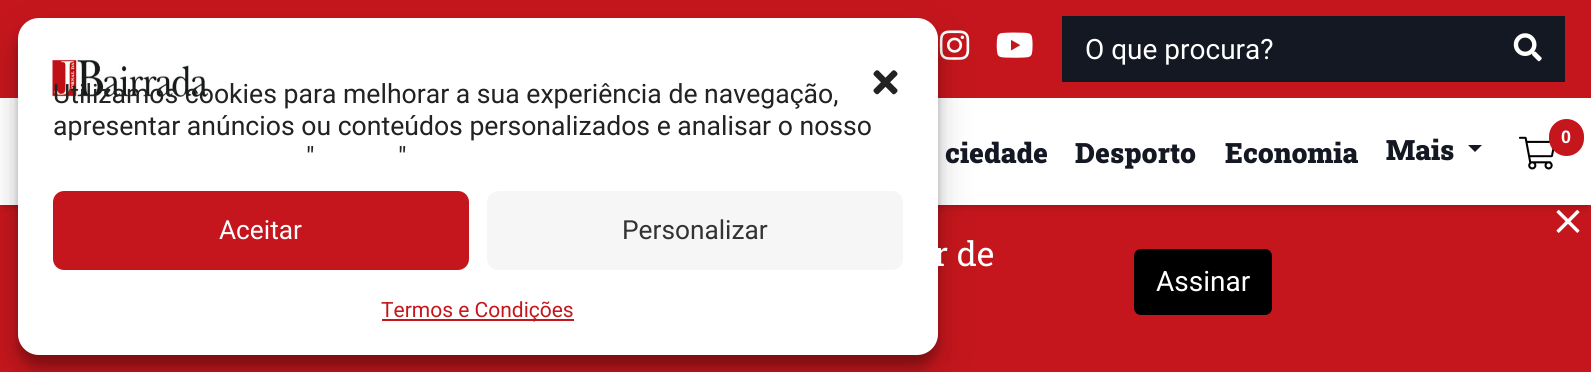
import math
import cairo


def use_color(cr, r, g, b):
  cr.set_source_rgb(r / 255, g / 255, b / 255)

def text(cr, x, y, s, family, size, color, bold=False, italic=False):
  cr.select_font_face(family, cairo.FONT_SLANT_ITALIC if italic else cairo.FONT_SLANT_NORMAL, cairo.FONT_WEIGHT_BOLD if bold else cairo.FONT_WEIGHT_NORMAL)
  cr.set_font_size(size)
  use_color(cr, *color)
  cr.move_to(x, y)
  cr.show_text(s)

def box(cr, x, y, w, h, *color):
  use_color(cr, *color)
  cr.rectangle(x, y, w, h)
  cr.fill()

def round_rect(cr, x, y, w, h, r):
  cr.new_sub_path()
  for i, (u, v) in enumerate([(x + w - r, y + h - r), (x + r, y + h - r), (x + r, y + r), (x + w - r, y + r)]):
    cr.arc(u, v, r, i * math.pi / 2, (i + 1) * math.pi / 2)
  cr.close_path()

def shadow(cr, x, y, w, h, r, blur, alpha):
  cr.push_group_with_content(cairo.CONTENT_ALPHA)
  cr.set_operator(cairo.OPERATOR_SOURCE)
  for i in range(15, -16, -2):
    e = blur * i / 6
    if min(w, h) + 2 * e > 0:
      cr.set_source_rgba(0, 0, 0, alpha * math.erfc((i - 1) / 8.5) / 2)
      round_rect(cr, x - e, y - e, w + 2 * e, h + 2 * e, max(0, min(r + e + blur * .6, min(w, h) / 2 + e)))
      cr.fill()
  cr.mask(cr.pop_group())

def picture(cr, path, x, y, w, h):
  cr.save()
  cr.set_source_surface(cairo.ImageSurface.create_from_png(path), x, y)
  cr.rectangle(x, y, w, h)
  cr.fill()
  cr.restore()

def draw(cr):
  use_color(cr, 196, 22, 28)
  cr.paint()
  picture(cr, "img_01.png", 939, 30, 31, 30)
  picture(cr, "img_02.png", 996, 32, 37, 26)
  box(cr, 1062, 16, 503, 66, 20, 24, 35)
  picture(cr, "img_03.png", 1513, 33, 29, 29)
  picture(cr, "img_07.png", 1556, 209, 24, 24)
  use_color(cr, 0, 0, 0)
  shadow(cr, 5, 110, 1582, 97, 0, 3.5, 0.2)
  box(cr, 0, 98, 1591, 107, 255, 255, 255)
  use_color(cr, 0, 0, 0)
  shadow(cr, 18, 28, 920, 338, 21, 5, 0.23)
  shadow(cr, 18, 35, 920, 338, 21, 17.5, 0.19)
  use_color(cr, 255, 255, 255)
  round_rect(cr, 18, 18, 920, 337, 21)
  cr.fill()
  picture(cr, "img_04.png", 52, 56, 157, 42)
  picture(cr, "img_05.png", 873, 70, 25, 25)
  use_color(cr, 196, 22, 28)
  round_rect(cr, 54, 192, 414, 77, 10)
  cr.fill_preserve()
  cr.stroke()
  use_color(cr, 246, 246, 246)
  round_rect(cr, 487, 191, 416, 79, 11)
  cr.fill()
  box(cr, 382, 319, 192, 2, 196, 22, 28)
  use_color(cr, 20, 24, 35)
  cr.new_path()
  cr.move_to(1468, 145)
  cr.line_to(1482, 145)
  cr.line_to(1475, 152)
  cr.close_path()
  cr.fill()
  picture(cr, "img_06.png", 1519, 136, 36, 34)
  use_color(cr, 196, 22, 28)
  round_rect(cr, 1549, 119, 35, 37, 17.5)
  cr.fill()
  use_color(cr, 0, 0, 0)
  round_rect(cr, 1134, 249, 138, 66, 7)
  cr.fill()
  text(cr, 1085, 59, "O que procura?", "Roboto", 28, (255, 255, 255))
  text(cr, 53, 103, "Utilizamos cookies para melhorar a sua experiência de navegação,", "Roboto", 26.6, (34, 34, 34))
  text(cr, 53, 135, "apresentar anúncios ou conteúdos personalizados e analisar o nosso", "Roboto", 26.6, (34, 34, 34))
  text(cr, 306, 166, "\"", "Roboto", 26.6, (34, 34, 34))
  text(cr, 398, 166, "\"", "Roboto", 26.6, (34, 34, 34))
  text(cr, 219, 239, "Aceitar", "Roboto", 26.25, (255, 255, 255))
  text(cr, 622, 239, "Personalizar", "Roboto", 26.25, (51, 51, 51))
  text(cr, 381, 317, "Termos e Condições", "Roboto", 21, (196, 22, 28))
  text(cr, 945, 163, "ciedade", "Roboto Slab Black", 28, (20, 24, 35))
  text(cr, 1075, 163, "Desporto", "Roboto Slab Black", 28, (20, 24, 35))
  text(cr, 1225, 163, "Economia", "Roboto Slab Black", 28, (20, 24, 35))
  text(cr, 1386, 160, "Mais", "Roboto Slab Black", 28, (20, 24, 35))
  text(cr, 1561, 143, "0", "Liberation Sans", 18, (255, 255, 255), bold=True)
  text(cr, 934, 266, "r de", "Roboto Slab", 34, (255, 255, 255))
  text(cr, 1156, 291, "Assinar", "Roboto", 28, (255, 255, 255))


surface = cairo.ImageSurface(cairo.FORMAT_RGB24, 1591, 372)
cr = cairo.Context(surface)
options = cairo.FontOptions()
options.set_hint_metrics(cairo.HINT_METRICS_OFF)
options.set_hint_style(cairo.HINT_STYLE_NONE)
cr.set_font_options(options)
cr.set_miter_limit(4)
draw(cr)
surface.write_to_png("out.png")
